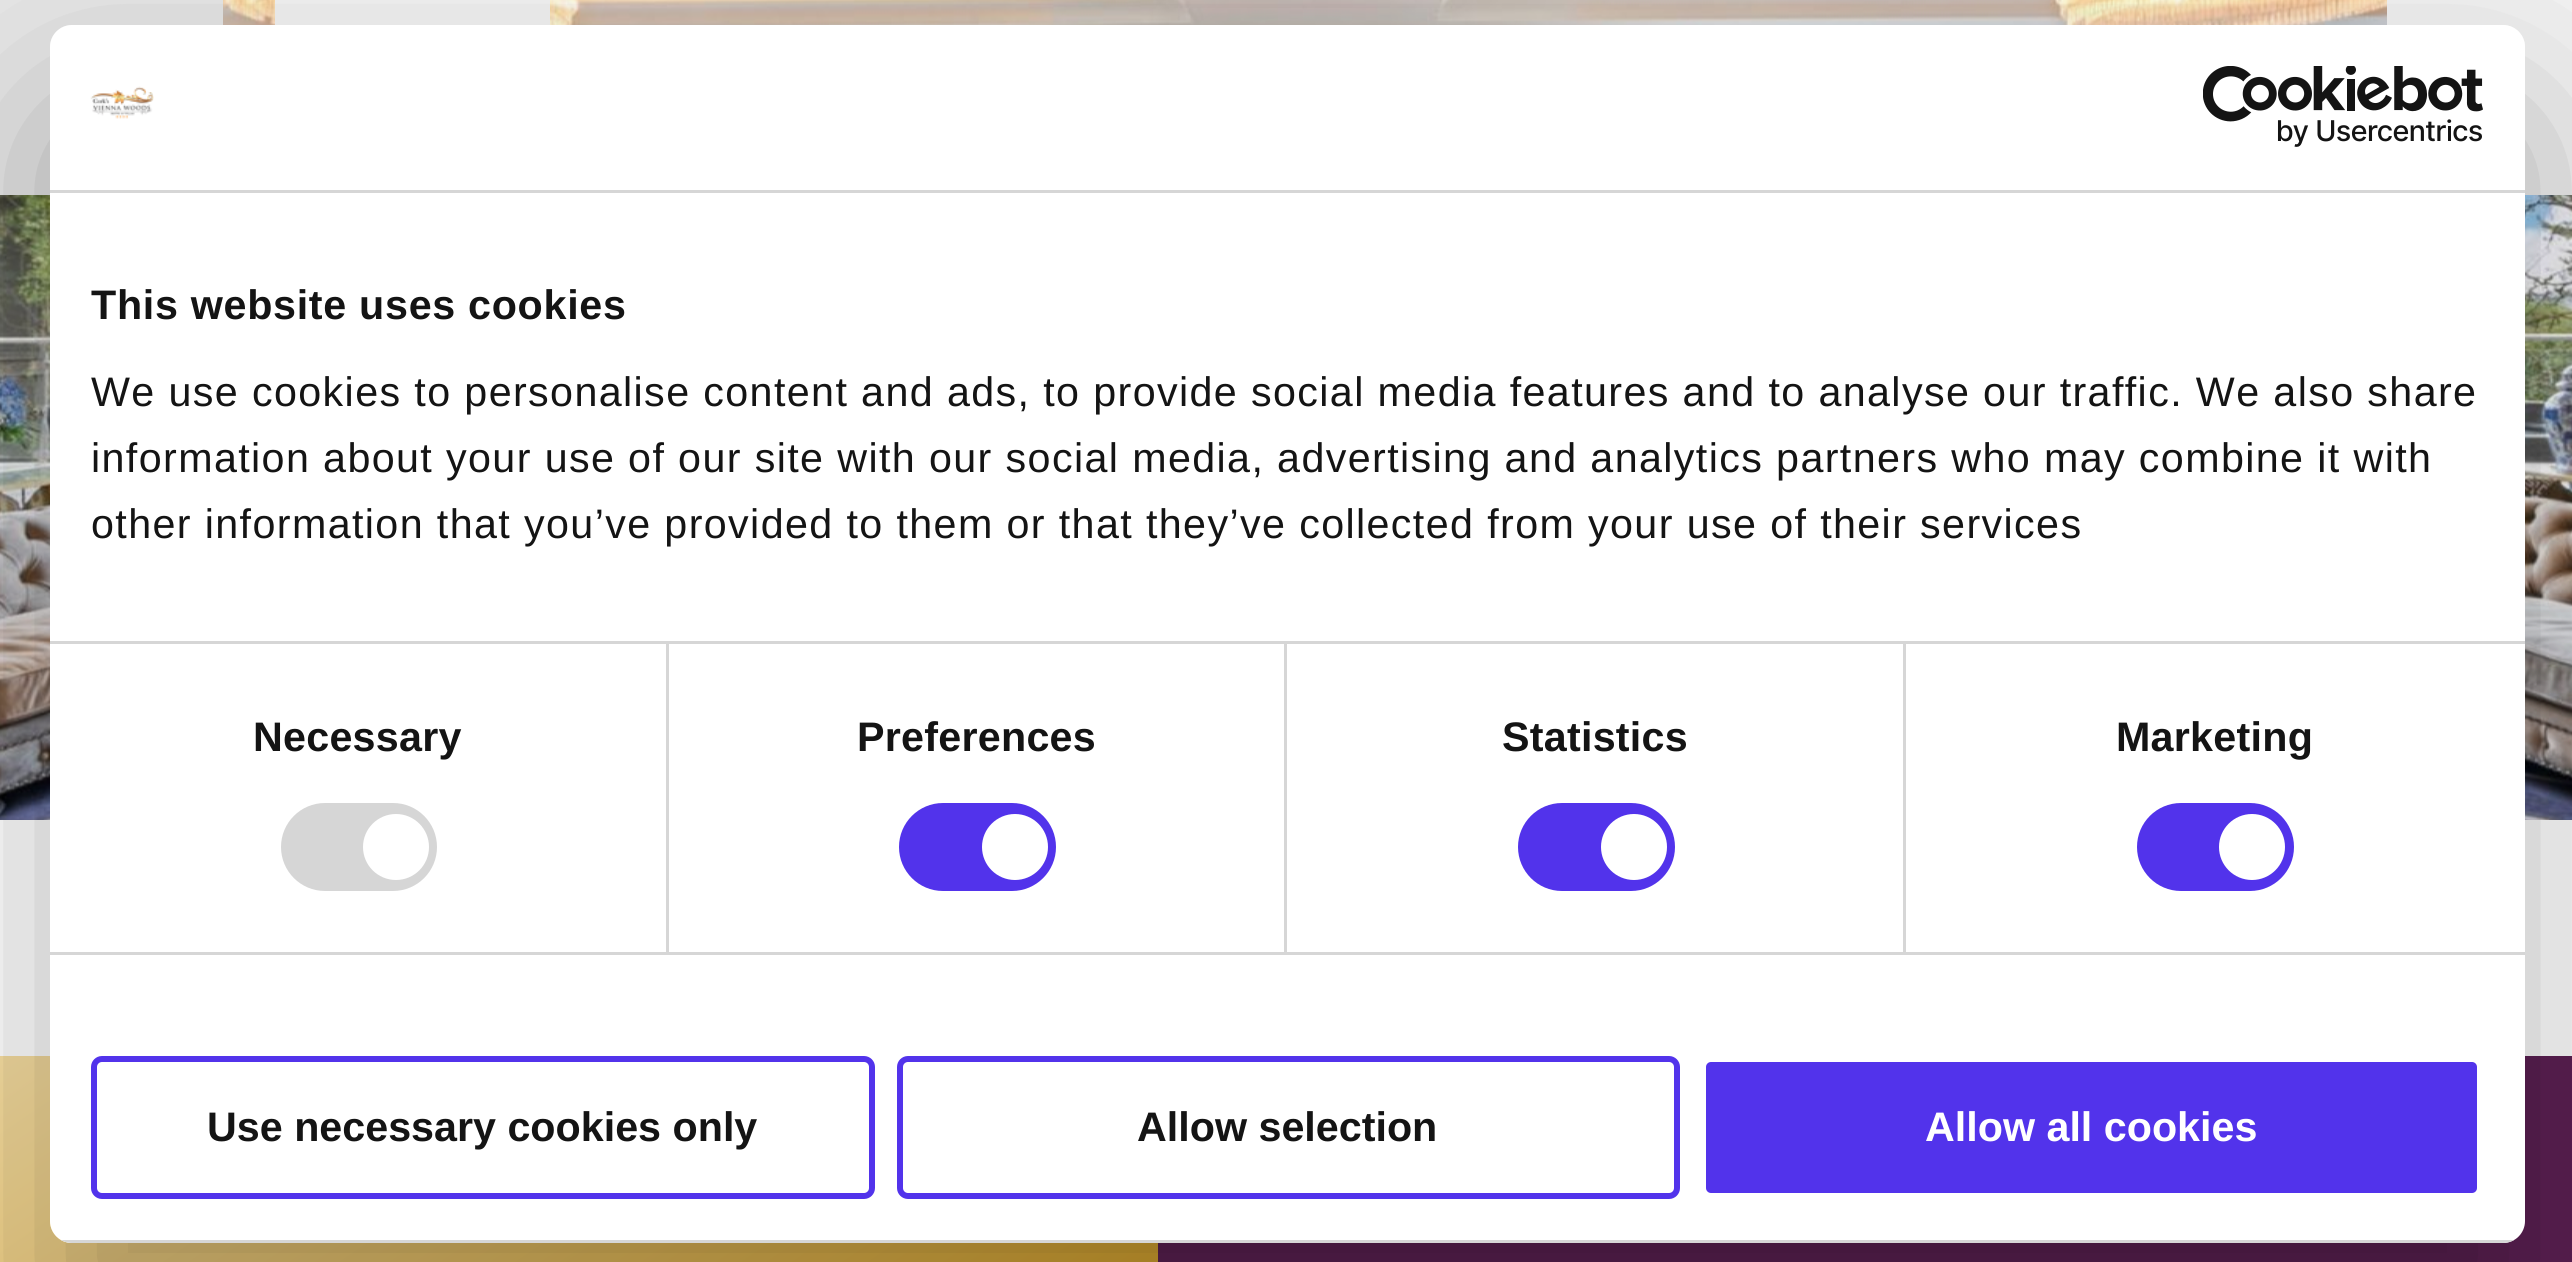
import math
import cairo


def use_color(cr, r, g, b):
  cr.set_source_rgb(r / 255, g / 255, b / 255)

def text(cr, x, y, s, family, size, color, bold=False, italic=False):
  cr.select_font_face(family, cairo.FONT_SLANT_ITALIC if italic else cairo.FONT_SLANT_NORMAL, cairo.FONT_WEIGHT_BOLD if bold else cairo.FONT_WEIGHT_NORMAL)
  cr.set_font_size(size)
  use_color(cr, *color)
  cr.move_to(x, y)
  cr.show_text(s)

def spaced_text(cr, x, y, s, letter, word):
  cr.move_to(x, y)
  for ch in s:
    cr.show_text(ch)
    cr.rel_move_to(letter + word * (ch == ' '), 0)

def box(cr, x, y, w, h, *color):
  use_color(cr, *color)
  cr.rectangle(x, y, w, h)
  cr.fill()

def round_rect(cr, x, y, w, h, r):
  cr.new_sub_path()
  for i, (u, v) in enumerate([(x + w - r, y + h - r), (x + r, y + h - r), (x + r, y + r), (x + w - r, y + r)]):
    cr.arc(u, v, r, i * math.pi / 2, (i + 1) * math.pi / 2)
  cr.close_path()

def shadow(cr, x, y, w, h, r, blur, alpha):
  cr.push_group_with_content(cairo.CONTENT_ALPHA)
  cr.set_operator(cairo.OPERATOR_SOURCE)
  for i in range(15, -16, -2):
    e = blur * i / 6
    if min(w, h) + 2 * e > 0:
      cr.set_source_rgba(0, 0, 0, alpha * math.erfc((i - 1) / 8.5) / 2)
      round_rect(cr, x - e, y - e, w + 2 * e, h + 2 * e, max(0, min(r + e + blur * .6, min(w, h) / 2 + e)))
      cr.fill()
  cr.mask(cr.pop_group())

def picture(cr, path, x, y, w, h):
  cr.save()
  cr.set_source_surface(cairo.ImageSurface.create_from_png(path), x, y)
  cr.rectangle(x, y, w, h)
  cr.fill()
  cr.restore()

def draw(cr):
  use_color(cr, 255, 255, 255)
  cr.paint()
  picture(cr, "img_01.png", 0, 0, 2572, 820)
  box(cr, 0, 0, 223, 195, 230, 230, 230)
  box(cr, 275, 0, 275, 25, 242, 242, 242)
  picture(cr, "img_02.png", 1169, 8, 296, 17)
  box(cr, 2387, 0, 185, 195, 242, 242, 242)
  box(cr, 1158, 1056, 1414, 206, 92, 32, 83)
  gradient = cairo.LinearGradient(350, 820, 808, 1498)
  gradient.add_color_stop_rgba(0, 0.965, 0.867, 0.631, 1)
  gradient.add_color_stop_rgba(1, 0.835, 0.639, 0.184, 1)
  cr.set_source(gradient)
  cr.rectangle(0, 1056, 1158, 206)
  cr.fill()
  cr.save()
  cr.set_fill_rule(cairo.FILL_RULE_EVEN_ODD)
  cr.new_path()
  cr.move_to(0, 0)
  cr.line_to(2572, 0)
  cr.line_to(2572, 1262)
  cr.line_to(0, 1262)
  cr.close_path()
  cr.move_to(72, 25)
  cr.line_to(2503, 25)
  cr.curve_to(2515, 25, 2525, 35, 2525, 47)
  cr.line_to(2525, 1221)
  cr.curve_to(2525, 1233, 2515, 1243, 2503, 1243)
  cr.line_to(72, 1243)
  cr.curve_to(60, 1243, 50, 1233, 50, 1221)
  cr.line_to(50, 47)
  cr.curve_to(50, 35, 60, 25, 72, 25)
  cr.close_path()
  cr.clip()
  use_color(cr, 0, 0, 0)
  shadow(cr, 50, 113, 2475, 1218, 22, 93.5, 0.3)
  cr.restore()
  use_color(cr, 255, 255, 255)
  round_rect(cr, 50, 25, 2475, 1218, 22)
  cr.fill()
  box(cr, 50, 190, 2475, 3, 214, 214, 214)
  picture(cr, "img_03.png", 90, 86, 64, 33)
  picture(cr, "img_04.png", 2203, 66, 280, 81)
  box(cr, 50, 641, 2475, 3, 214, 214, 214)
  box(cr, 50, 952, 2475, 3, 214, 214, 214)
  box(cr, 666, 644, 3, 308, 214, 214, 214)
  round_rect(cr, 281, 803, 156, 88, 44)
  cr.fill()
  use_color(cr, 255, 255, 255)
  cr.arc(396, 847, 33, 0, 2 * math.pi)
  cr.fill()
  box(cr, 1284, 644, 3, 308, 214, 214, 214)
  use_color(cr, 82, 51, 235)
  round_rect(cr, 899, 803, 157, 88, 44)
  cr.fill()
  use_color(cr, 255, 255, 255)
  cr.arc(1015, 847, 33, 0, 2 * math.pi)
  cr.fill()
  box(cr, 1903, 644, 3, 308, 214, 214, 214)
  use_color(cr, 82, 51, 235)
  round_rect(cr, 1518, 803, 157, 88, 44)
  cr.fill()
  use_color(cr, 255, 255, 255)
  cr.arc(1634, 847, 33, 0, 2 * math.pi)
  cr.fill()
  use_color(cr, 82, 51, 235)
  round_rect(cr, 2137, 803, 157, 88, 44)
  cr.fill()
  use_color(cr, 255, 255, 255)
  cr.arc(2252, 847, 33, 0, 2 * math.pi)
  cr.fill()
  cr.save()
  round_rect(cr, 50, 25, 2475, 1218, 22)
  cr.clip()
  box(cr, 61, 1240, 2453, 3, 214, 214, 214)
  cr.restore()
  round_rect(cr, 94, 1059, 778, 137, 8)
  use_color(cr, 82, 51, 235)
  cr.set_line_width(6)
  cr.stroke()
  round_rect(cr, 900, 1059, 777, 137, 8)
  cr.stroke()
  round_rect(cr, 1703, 1059, 777, 137, 8)
  cr.fill_preserve()
  use_color(cr, 255, 255, 255)
  cr.stroke()
  cr.select_font_face("Liberation Sans", cairo.FONT_SLANT_NORMAL, cairo.FONT_WEIGHT_BOLD)
  cr.set_font_size(41.25)
  use_color(cr, 20, 20, 20)
  spaced_text(cr, 91, 319, "This website uses cookies", 0.7, 0)
  cr.select_font_face("Liberation Sans")
  spaced_text(cr, 91, 406, "We use cookies to personalise content and ads, to provide social media features and to analyse our traffic. We also share", 1.38, 0)
  spaced_text(cr, 91, 472, "information about your use of our site with our social media, advertising and analytics partners who may combine it with", 1.38, 0)
  spaced_text(cr, 91, 538, "other information that you’ve provided to them or that they’ve collected from your use of their services", 1.38, 0)
  cr.select_font_face("Liberation Sans", cairo.FONT_SLANT_NORMAL, cairo.FONT_WEIGHT_BOLD)
  spaced_text(cr, 253, 751, "Necessary", 0.25, 0)
  spaced_text(cr, 857, 751, "Preferences", 0.25, 0)
  spaced_text(cr, 1502, 751, "Statistics", 0.25, 0)
  spaced_text(cr, 2116, 751, "Marketing", 0.25, 0)
  text(cr, 207, 1141, "Use necessary cookies only", "Liberation Sans", 41.25, (20, 20, 20), bold=True)
  text(cr, 1137, 1141, "Allow selection", "Liberation Sans", 41.25, (20, 20, 20), bold=True)
  text(cr, 1925, 1141, "Allow all cookies", "Liberation Sans", 41.25, (255, 255, 255), bold=True)


surface = cairo.ImageSurface(cairo.FORMAT_RGB24, 2572, 1262)
cr = cairo.Context(surface)
options = cairo.FontOptions()
options.set_hint_metrics(cairo.HINT_METRICS_OFF)
options.set_hint_style(cairo.HINT_STYLE_NONE)
cr.set_font_options(options)
cr.set_miter_limit(4)
draw(cr)
surface.write_to_png("out.png")
